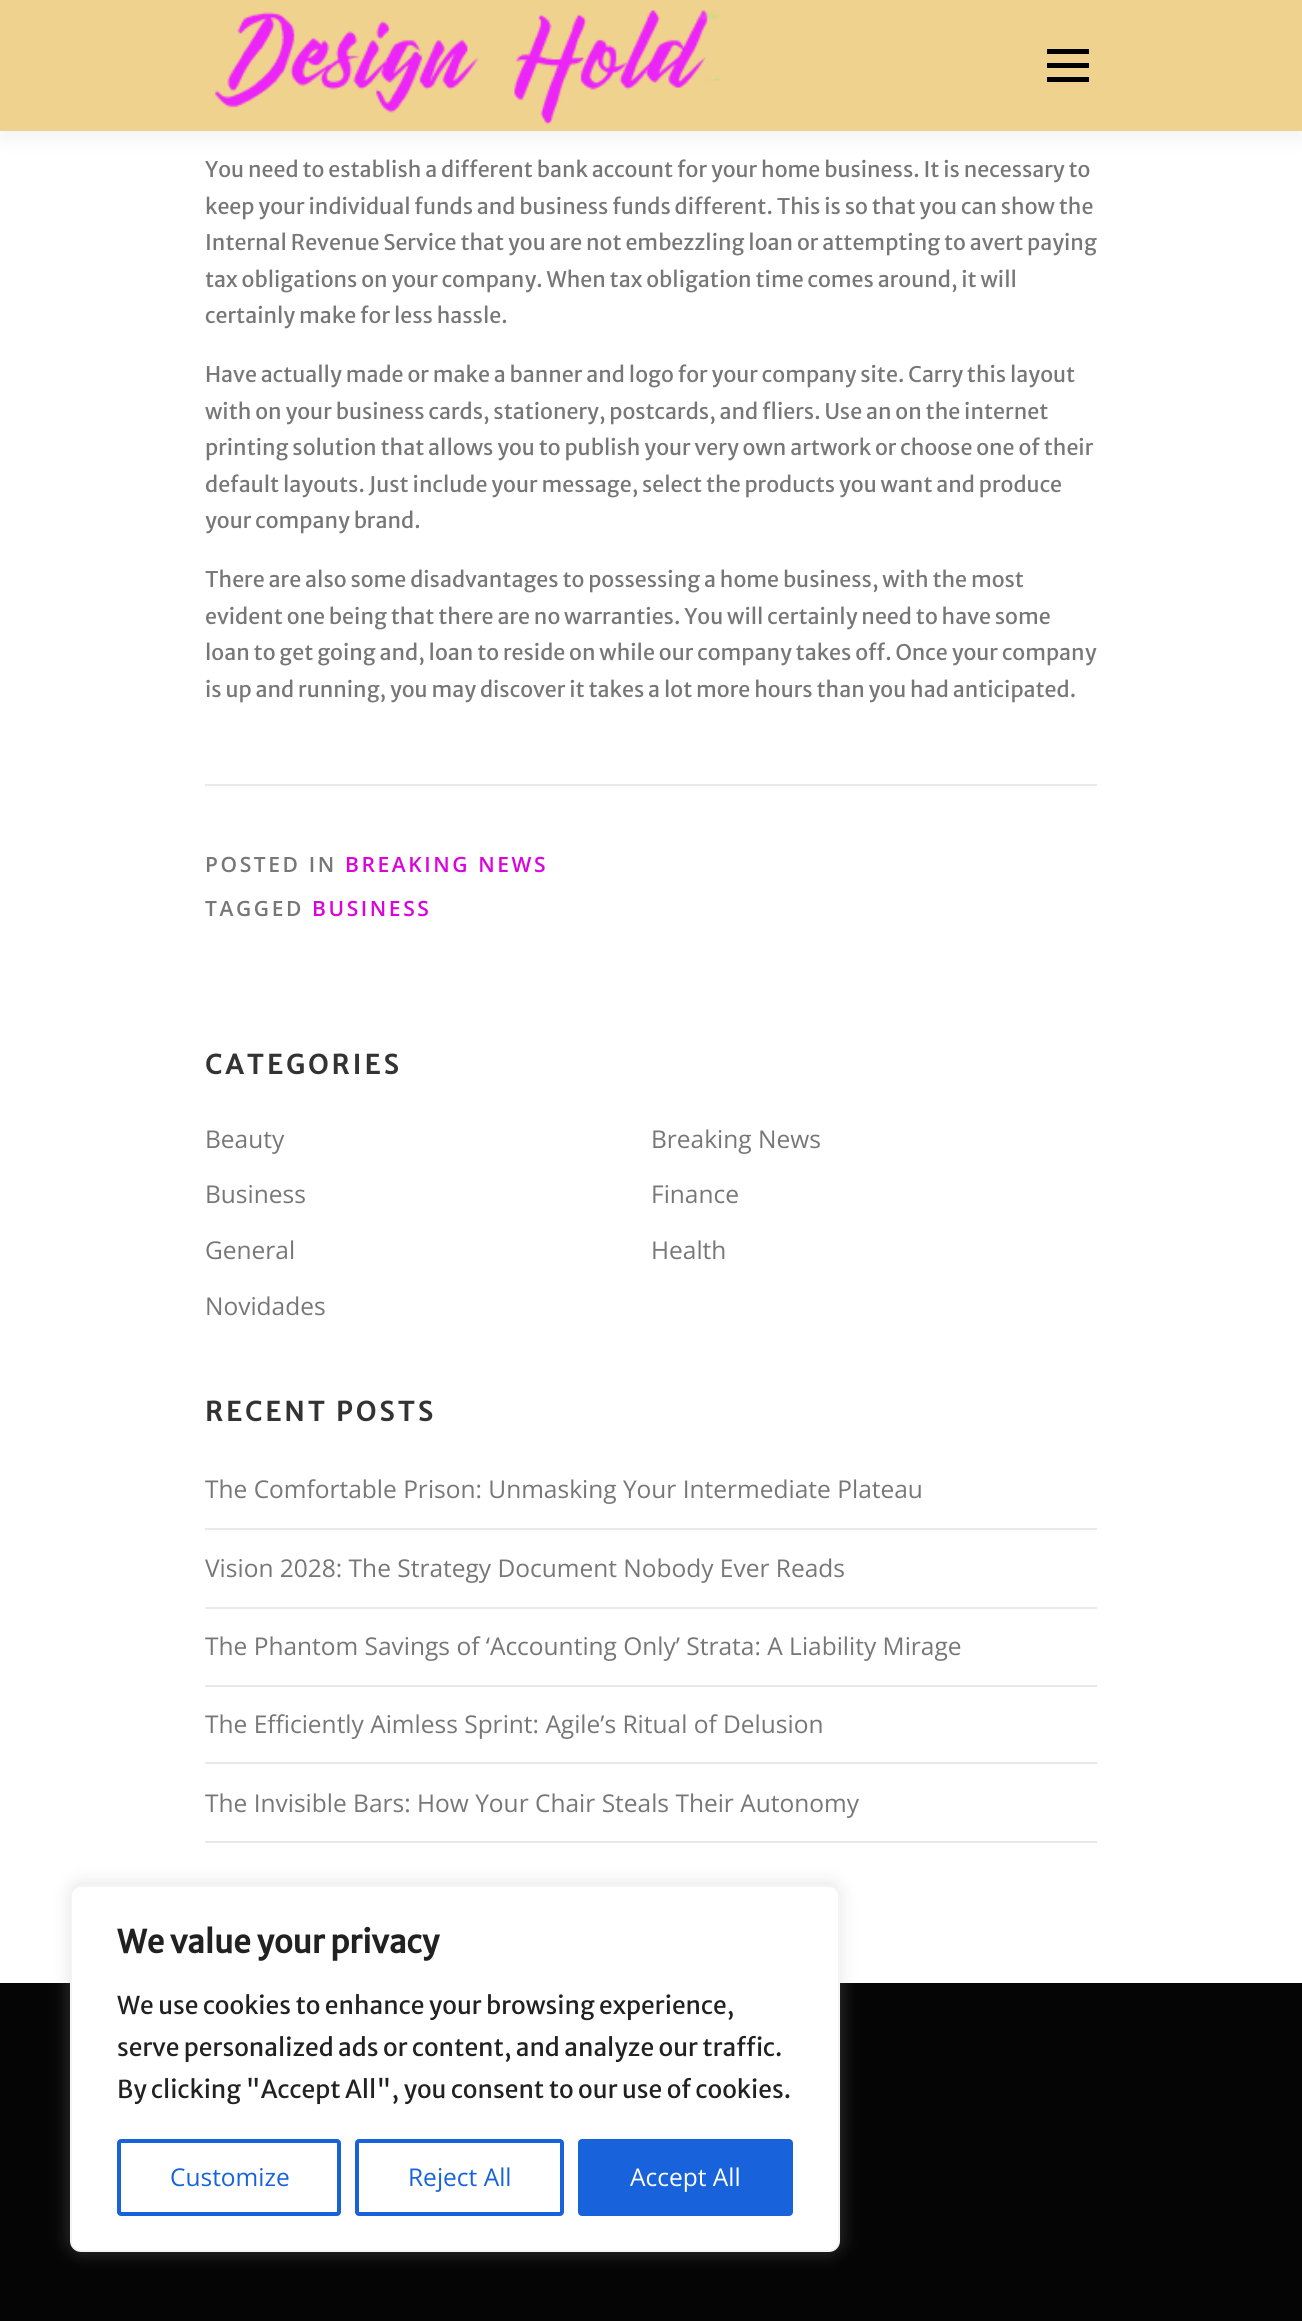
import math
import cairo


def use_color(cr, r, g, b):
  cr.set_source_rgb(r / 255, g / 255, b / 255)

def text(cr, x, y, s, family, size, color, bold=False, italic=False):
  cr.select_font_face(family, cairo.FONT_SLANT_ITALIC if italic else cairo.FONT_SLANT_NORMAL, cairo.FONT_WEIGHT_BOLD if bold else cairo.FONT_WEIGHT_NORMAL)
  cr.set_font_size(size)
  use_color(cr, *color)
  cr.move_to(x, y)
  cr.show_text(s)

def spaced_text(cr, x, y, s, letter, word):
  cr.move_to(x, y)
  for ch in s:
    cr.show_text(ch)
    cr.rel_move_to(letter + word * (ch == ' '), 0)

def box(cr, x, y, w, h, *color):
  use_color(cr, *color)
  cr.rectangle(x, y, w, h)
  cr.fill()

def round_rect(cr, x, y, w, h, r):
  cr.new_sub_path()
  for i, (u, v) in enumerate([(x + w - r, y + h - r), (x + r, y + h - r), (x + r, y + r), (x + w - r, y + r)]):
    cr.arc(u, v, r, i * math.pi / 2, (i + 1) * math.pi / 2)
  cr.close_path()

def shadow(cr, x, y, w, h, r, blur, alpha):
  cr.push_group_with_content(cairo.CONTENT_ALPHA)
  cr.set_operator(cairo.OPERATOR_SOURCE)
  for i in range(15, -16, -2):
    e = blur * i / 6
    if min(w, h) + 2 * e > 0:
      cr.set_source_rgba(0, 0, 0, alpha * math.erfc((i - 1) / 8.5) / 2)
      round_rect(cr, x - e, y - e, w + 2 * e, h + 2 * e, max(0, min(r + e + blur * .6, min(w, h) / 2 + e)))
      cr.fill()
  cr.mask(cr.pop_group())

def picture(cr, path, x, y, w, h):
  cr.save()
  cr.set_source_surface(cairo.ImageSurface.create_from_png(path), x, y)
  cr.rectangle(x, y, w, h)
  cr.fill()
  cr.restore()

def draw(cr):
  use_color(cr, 255, 255, 255)
  cr.paint()
  use_color(cr, 50, 50, 50)
  shadow(cr, 0, 9, 1302, 131, 0, 9, 0.06)
  box(cr, 0, 0, 1302, 131, 239, 210, 141)
  picture(cr, "img_01.png", 214, 10, 506, 115)
  box(cr, 1047, 63, 42, 5, 0, 0, 0)
  box(cr, 1047, 49, 42, 5, 0, 0, 0)
  box(cr, 1047, 77, 42, 5, 0, 0, 0)
  box(cr, 205, 784, 892, 2, 233, 233, 233)
  box(cr, 205, 1528, 892, 2, 233, 233, 233)
  box(cr, 205, 1607, 892, 2, 233, 233, 233)
  box(cr, 205, 1685, 892, 2, 233, 233, 233)
  box(cr, 205, 1762, 892, 2, 233, 233, 233)
  box(cr, 205, 1841, 892, 2, 233, 233, 233)
  box(cr, 0, 1983, 1302, 338, 5, 5, 5)
  use_color(cr, 172, 171, 171)
  shadow(cr, 70, 1883, 770, 368, 11, 9, 0.3)
  use_color(cr, 255, 255, 255)
  round_rect(cr, 71, 1886, 768, 365, 10)
  cr.fill_preserve()
  use_color(cr, 244, 244, 244)
  cr.stroke()
  round_rect(cr, 119, 2141, 220, 73, 2)
  use_color(cr, 24, 99, 220)
  cr.set_line_width(4)
  cr.stroke()
  round_rect(cr, 357, 2141, 205, 73, 2)
  cr.stroke()
  round_rect(cr, 580, 2141, 211, 73, 2)
  cr.fill_preserve()
  cr.stroke()
  text(cr, 205, 177, "You need to establish a different bank account for your home business. It is necessary to", "Merriweather Sans", 21.45, (119, 119, 119))
  text(cr, 205, 214, "keep your individual funds and business funds different. This is so that you can show the", "Merriweather Sans", 21.45, (119, 119, 119))
  text(cr, 205, 250, "Internal Revenue Service that you are not embezzling loan or attempting to avert paying", "Merriweather Sans", 21.45, (119, 119, 119))
  text(cr, 205, 287, "tax obligations on your company. When tax obligation time comes around, it will", "Merriweather Sans", 21.45, (119, 119, 119))
  text(cr, 205, 323, "certainly make for less hassle.", "Merriweather Sans", 21.45, (119, 119, 119))
  text(cr, 205, 382, "Have actually made or make a banner and logo for your company site. Carry this layout", "Merriweather Sans", 21.45, (119, 119, 119))
  text(cr, 205, 419, "with on your business cards, stationery, postcards, and fliers. Use an on the internet", "Merriweather Sans", 21.45, (119, 119, 119))
  text(cr, 205, 455, "printing solution that allows you to publish your very own artwork or choose one of their", "Merriweather Sans", 21.45, (119, 119, 119))
  text(cr, 205, 492, "default layouts. Just include your message, select the products you want and produce", "Merriweather Sans", 21.45, (119, 119, 119))
  text(cr, 205, 528, "your company brand.", "Merriweather Sans", 21.45, (119, 119, 119))
  text(cr, 205, 587, "There are also some disadvantages to possessing a home business, with the most", "Merriweather Sans", 21.45, (119, 119, 119))
  text(cr, 205, 624, "evident one being that there are no warranties. You will certainly need to have some", "Merriweather Sans", 21.45, (119, 119, 119))
  text(cr, 205, 660, "loan to get going and, loan to reside on while our company takes off. Once your company", "Merriweather Sans", 21.45, (119, 119, 119))
  text(cr, 205, 697, "is up and running, you may discover it takes a lot more hours than you had anticipated.", "Merriweather Sans", 21.45, (119, 119, 119))
  cr.select_font_face("Open Sans SemiBold")
  cr.set_font_size(21)
  spaced_text(cr, 205, 872, "POSTED IN", 2.6, 0)
  use_color(cr, 218, 2, 221)
  spaced_text(cr, 345, 872, "BREAKING NEWS", 2.6, 0)
  use_color(cr, 119, 119, 119)
  spaced_text(cr, 205, 916, "TAGGED", 2.6, 0)
  use_color(cr, 218, 2, 221)
  spaced_text(cr, 312, 916, "BUSINESS", 2.6, 0)
  cr.select_font_face("Merriweather Sans", cairo.FONT_SLANT_NORMAL, cairo.FONT_WEIGHT_BOLD)
  cr.set_font_size(26.25)
  use_color(cr, 51, 51, 51)
  spaced_text(cr, 205, 1074, "CATEGORIES", 3.5, 0)
  text(cr, 205, 1148, "Beauty", "Open Sans", 24.5, (119, 119, 119))
  text(cr, 651, 1148, "Breaking News", "Open Sans", 24.5, (119, 119, 119))
  text(cr, 205, 1203, "Business", "Open Sans", 24.5, (119, 119, 119))
  text(cr, 651, 1203, "Finance", "Open Sans", 24.5, (119, 119, 119))
  text(cr, 205, 1259, "General", "Open Sans", 24.5, (119, 119, 119))
  text(cr, 651, 1259, "Health", "Open Sans", 24.5, (119, 119, 119))
  text(cr, 205, 1315, "Novidades", "Open Sans", 24.5, (119, 119, 119))
  cr.select_font_face("Merriweather Sans", cairo.FONT_SLANT_NORMAL, cairo.FONT_WEIGHT_BOLD)
  cr.set_font_size(26.25)
  use_color(cr, 51, 51, 51)
  spaced_text(cr, 205, 1421, "RECENT POSTS", 3.5, 0)
  text(cr, 205, 1498, "The Comfortable Prison: Unmasking Your Intermediate Plateau", "Open Sans", 24.5, (119, 119, 119))
  text(cr, 205, 1577, "Vision 2028: The Strategy Document Nobody Ever Reads", "Open Sans", 24.5, (119, 119, 119))
  text(cr, 205, 1655, "The Phantom Savings of ‘Accounting Only’ Strata: A Liability Mirage", "Open Sans", 24.5, (119, 119, 119))
  text(cr, 205, 1733, "The Efficiently Aimless Sprint: Agile’s Ritual of Delusion", "Open Sans", 24.5, (119, 119, 119))
  text(cr, 205, 1812, "The Invisible Bars: How Your Chair Steals Their Autonomy", "Open Sans", 24.5, (119, 119, 119))
  text(cr, 117, 1953, "We value your privacy", "Merriweather Sans", 31.5, (33, 33, 33), bold=True)
  text(cr, 117, 2014, "We use cookies to enhance your browsing experience,", "Merriweather Sans", 24.5, (33, 33, 33))
  text(cr, 117, 2056, "serve personalized ads or content, and analyze our traffic.", "Merriweather Sans", 24.5, (33, 33, 33))
  text(cr, 117, 2098, "By clicking \"Accept All\", you consent to our use of cookies.", "Merriweather Sans", 24.5, (33, 33, 33))
  text(cr, 170, 2186, "Customize", "Open Sans", 24.5, (24, 99, 220))
  text(cr, 408, 2186, "Reject All", "Open Sans", 24.5, (24, 99, 220))
  text(cr, 630, 2186, "Accept All", "Open Sans", 24.5, (255, 255, 255))


surface = cairo.ImageSurface(cairo.FORMAT_RGB24, 1302, 2321)
cr = cairo.Context(surface)
options = cairo.FontOptions()
options.set_hint_metrics(cairo.HINT_METRICS_OFF)
options.set_hint_style(cairo.HINT_STYLE_NONE)
cr.set_font_options(options)
cr.set_miter_limit(4)
draw(cr)
surface.write_to_png("out.png")
